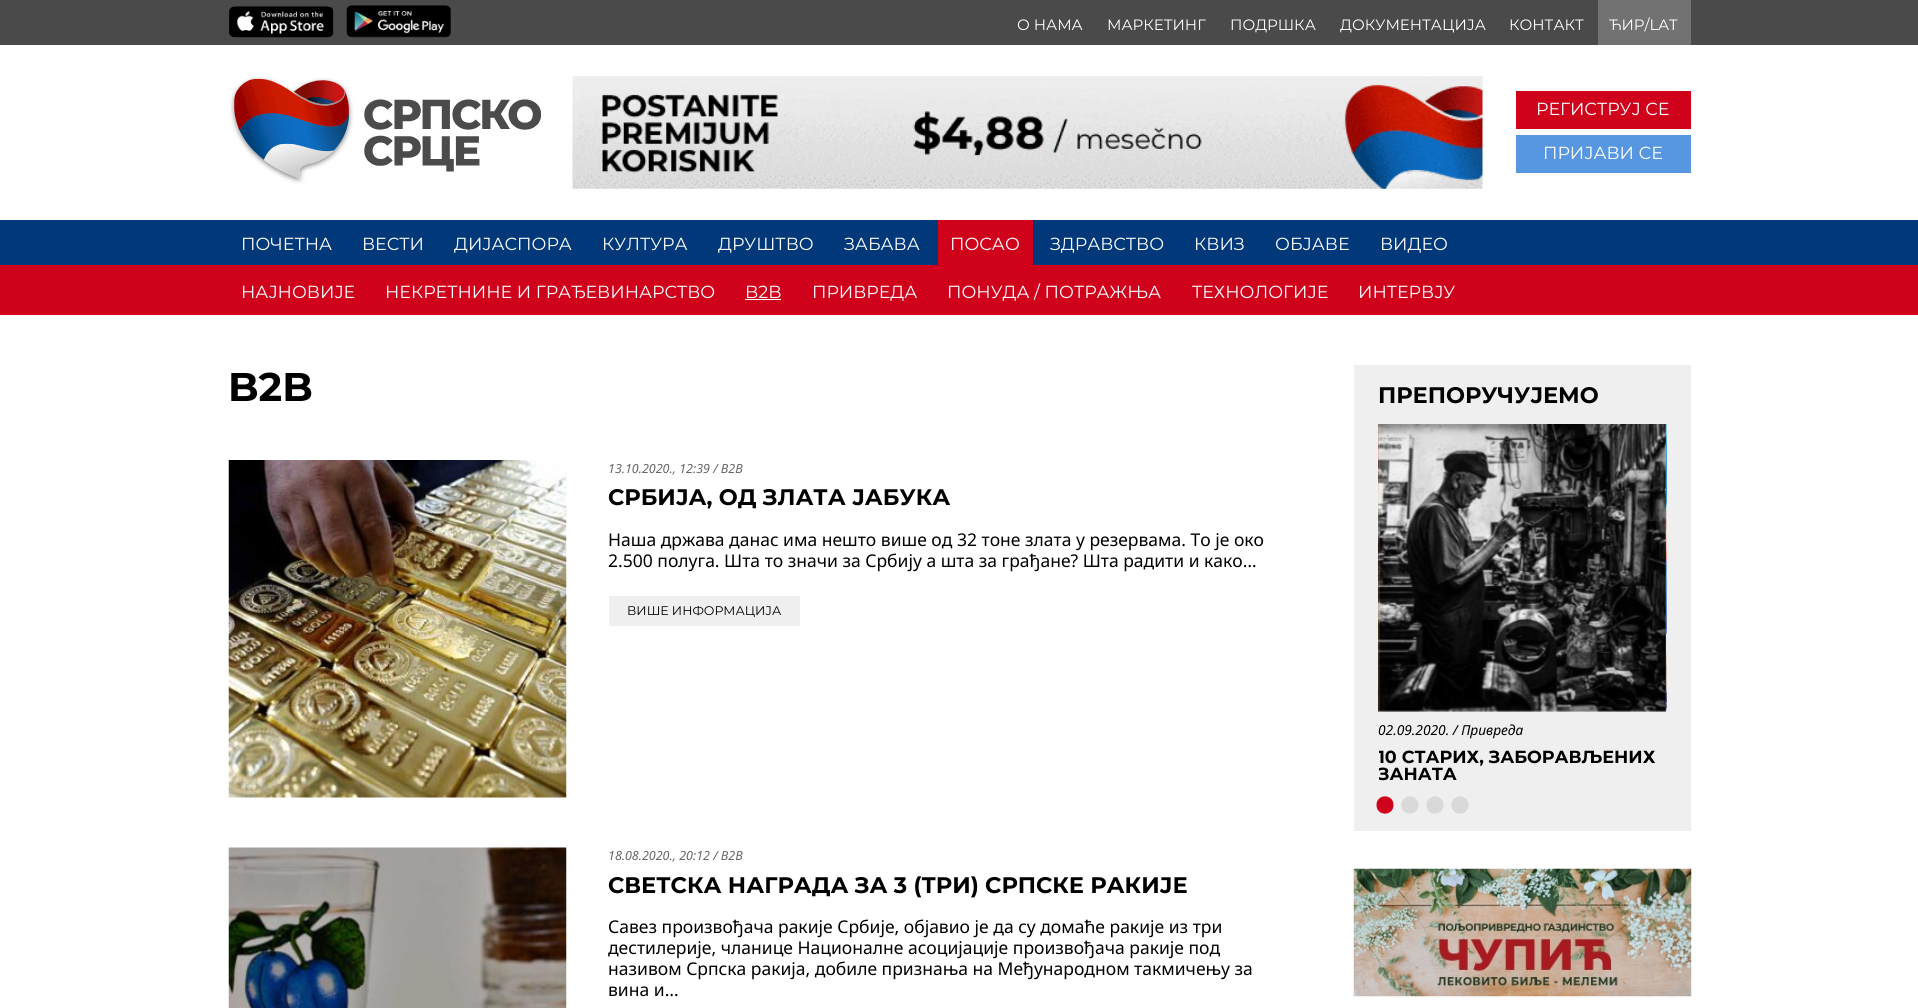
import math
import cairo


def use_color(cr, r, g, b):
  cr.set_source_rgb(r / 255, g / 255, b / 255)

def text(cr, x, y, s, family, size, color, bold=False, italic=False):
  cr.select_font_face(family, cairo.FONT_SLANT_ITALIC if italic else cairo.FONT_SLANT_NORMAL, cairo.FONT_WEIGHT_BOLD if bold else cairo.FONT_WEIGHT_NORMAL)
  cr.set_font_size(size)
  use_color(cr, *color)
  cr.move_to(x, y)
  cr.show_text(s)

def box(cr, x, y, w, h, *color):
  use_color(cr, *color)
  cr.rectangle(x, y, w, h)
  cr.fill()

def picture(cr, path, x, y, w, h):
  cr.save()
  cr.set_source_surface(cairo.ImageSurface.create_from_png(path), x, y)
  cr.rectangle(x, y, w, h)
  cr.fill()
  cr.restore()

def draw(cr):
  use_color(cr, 255, 255, 255)
  cr.paint()
  box(cr, 0, 0, 1918, 45, 74, 74, 74)
  picture(cr, "img_01.png", 228, 6, 106, 32)
  picture(cr, "img_02.png", 346, 5, 105, 33)
  box(cr, 1598, 0, 93, 45, 114, 114, 114)
  picture(cr, "img_03.png", 230, 77, 311, 107)
  picture(cr, "img_04.png", 572, 76, 911, 113)
  box(cr, 1516, 91, 175, 38, 208, 2, 27)
  box(cr, 1516, 135, 175, 38, 87, 150, 224)
  box(cr, 0, 220, 1918, 45, 0, 56, 122)
  box(cr, 938, 220, 95, 45, 208, 2, 27)
  box(cr, 0, 265, 1918, 50, 208, 2, 27)
  box(cr, 745, 299, 36, 1, 255, 255, 255)
  picture(cr, "img_05.png", 228, 460, 339, 338)
  box(cr, 609, 596, 191, 30, 239, 239, 239)
  picture(cr, "img_06.png", 228, 847, 339, 161)
  box(cr, 1354, 365, 337, 466, 239, 239, 239)
  picture(cr, "img_07.png", 1378, 424, 1, 288)
  picture(cr, "img_08.png", 1666, 424, 1, 288)
  picture(cr, "img_09.png", 1378, 424, 288, 288)
  use_color(cr, 208, 2, 27)
  cr.new_path()
  cr.move_to(1393.5, 805)
  cr.curve_to(1393.5, 793.5, 1376.5, 793.5, 1376.5, 805)
  cr.curve_to(1376.5, 816.5, 1393.5, 816.5, 1393.5, 805)
  cr.close_path()
  cr.fill()
  use_color(cr, 217, 217, 217)
  cr.new_path()
  cr.move_to(1418.5, 805)
  cr.curve_to(1418.5, 793.5, 1401.5, 793.5, 1401.5, 805)
  cr.curve_to(1401.5, 816.5, 1418.5, 816.5, 1418.5, 805)
  cr.close_path()
  cr.move_to(1443.5, 805)
  cr.curve_to(1443.5, 793.5, 1426.5, 793.5, 1426.5, 805)
  cr.curve_to(1426.5, 816.5, 1443.5, 816.5, 1443.5, 805)
  cr.close_path()
  cr.fill()
  cr.new_path()
  cr.move_to(1468.5, 805)
  cr.curve_to(1468.5, 793.5, 1451.5, 793.5, 1451.5, 805)
  cr.curve_to(1451.5, 816.5, 1468.5, 816.5, 1468.5, 805)
  cr.close_path()
  cr.fill()
  picture(cr, "img_10.png", 1353, 868, 339, 129)
  text(cr, 1017, 30, "О НАМА", "Montserrat", 15, (255, 255, 255))
  text(cr, 1107, 30, "МАРКЕТИНГ", "Montserrat", 15, (255, 255, 255))
  text(cr, 1230, 30, "ПОДРШКА", "Montserrat", 15, (255, 255, 255))
  text(cr, 1340, 30, "ДОКУМЕНТАЦИЈА", "Montserrat", 15, (255, 255, 255))
  text(cr, 1509, 30, "КОНТАКТ", "Montserrat", 15, (255, 255, 255))
  text(cr, 1609, 30, "ЋИР/LAT", "Montserrat", 15, (255, 255, 255))
  text(cr, 1536, 115, "РЕГИСТРУЈ СЕ", "Montserrat", 17.5, (255, 255, 255))
  text(cr, 1543, 159, "ПРИЈАВИ СЕ", "Montserrat", 17.5, (255, 255, 255))
  text(cr, 241, 250, "ПОЧЕТНА", "Montserrat", 17.5, (255, 255, 255))
  text(cr, 950, 250, "ПОСАО", "Montserrat", 17.5, (255, 255, 255))
  text(cr, 241, 298, "НАЈНОВИЈЕ", "Montserrat", 17.5, (255, 255, 255))
  text(cr, 385, 298, "НЕКРЕТНИНЕ И ГРАЂЕВИНАРСТВО", "Montserrat", 17.5, (255, 255, 255))
  text(cr, 745, 298, "B2B", "Montserrat", 17.5, (255, 255, 255))
  text(cr, 812, 298, "ПРИВРЕДА", "Montserrat", 17.5, (255, 255, 255))
  text(cr, 947, 298, "ПОНУДА / ПОТРАЖЊА", "Montserrat", 17.5, (255, 255, 255))
  text(cr, 1192, 298, "ТЕХНОЛОГИЈЕ", "Montserrat", 17.5, (255, 255, 255))
  text(cr, 1358, 298, "ИНТЕРВЈУ", "Montserrat", 17.5, (255, 255, 255))
  text(cr, 362, 250, "ВЕСТИ", "Montserrat", 17.5, (255, 255, 255))
  text(cr, 454, 250, "ДИЈАСПОРА", "Montserrat", 17.5, (255, 255, 255))
  text(cr, 602, 250, "КУЛТУРА", "Montserrat", 17.5, (255, 255, 255))
  text(cr, 718, 250, "ДРУШТВО", "Montserrat", 17.5, (255, 255, 255))
  text(cr, 844, 250, "ЗАБАВА", "Montserrat", 17.5, (255, 255, 255))
  text(cr, 1050, 250, "ЗДРАВСТВО", "Montserrat", 17.5, (255, 255, 255))
  text(cr, 1194, 250, "КВИЗ", "Montserrat", 17.5, (255, 255, 255))
  text(cr, 1275, 250, "ОБЈАВЕ", "Montserrat", 17.5, (255, 255, 255))
  text(cr, 1380, 250, "ВИДЕО", "Montserrat", 17.5, (255, 255, 255))
  text(cr, 228, 401, "B2B", "Montserrat", 40, (0, 0, 0), bold=True)
  text(cr, 608, 473, "13.10.2020., 12:39 / B2B", "Noto Sans", 12.5, (102, 102, 102), italic=True)
  text(cr, 608, 505, "СРБИЈА, ОД ЗЛАТА ЈАБУКА", "Montserrat", 22.5, (0, 0, 0), bold=True)
  text(cr, 608, 546, "Наша држава данас има нешто више од 32 тоне злата у резервама. То је око", "Noto Sans", 17.5, (0, 0, 0))
  text(cr, 608, 567, "2.500 полуга. Шта то значи за Србију а шта за грађане? Шта радити и како…", "Noto Sans", 17.5, (0, 0, 0))
  text(cr, 627, 615, "ВИШЕ ИНФОРМАЦИЈА", "Montserrat", 12.5, (0, 0, 0))
  text(cr, 608, 860, "18.08.2020., 20:12 / B2B", "Noto Sans", 12.5, (102, 102, 102), italic=True)
  text(cr, 608, 893, "СВЕТСКА НАГРАДА ЗА 3 (ТРИ) СРПСКЕ РАКИЈЕ", "Montserrat", 22.5, (0, 0, 0), bold=True)
  text(cr, 608, 933, "Савез произвођача ракије Србије, објавио је да су домаће ракије из три", "Noto Sans", 17.5, (0, 0, 0))
  text(cr, 608, 954, "дестилерије, чланице Националне асоцијације произвођача ракије под", "Noto Sans", 17.5, (0, 0, 0))
  text(cr, 608, 975, "називом Српска ракија, добиле признања на Међународном такмичењу за", "Noto Sans", 17.5, (0, 0, 0))
  text(cr, 608, 996, "вина и…", "Noto Sans", 17.5, (0, 0, 0))
  text(cr, 1378, 403, "ПРЕПОРУЧУЈЕМО", "Montserrat", 22.5, (0, 0, 0), bold=True)
  text(cr, 1378, 735, "02.09.2020. / Привреда", "Noto Sans", 13.75, (0, 0, 0), italic=True)
  cr.save()
  cr.rectangle(1379, 424, 287, 376)
  cr.clip()
  text(cr, 1378, 763, "10 СТАРИХ, ЗАБОРАВЉЕНИХ", "Montserrat", 17.5, (0, 0, 0), bold=True)
  text(cr, 1378, 780, "ЗАНАТА", "Montserrat", 17.5, (0, 0, 0), bold=True)
  cr.restore()


surface = cairo.ImageSurface(cairo.FORMAT_RGB24, 1918, 1008)
cr = cairo.Context(surface)
options = cairo.FontOptions()
options.set_hint_metrics(cairo.HINT_METRICS_OFF)
options.set_hint_style(cairo.HINT_STYLE_NONE)
cr.set_font_options(options)
cr.set_miter_limit(4)
draw(cr)
surface.write_to_png("out.png")
